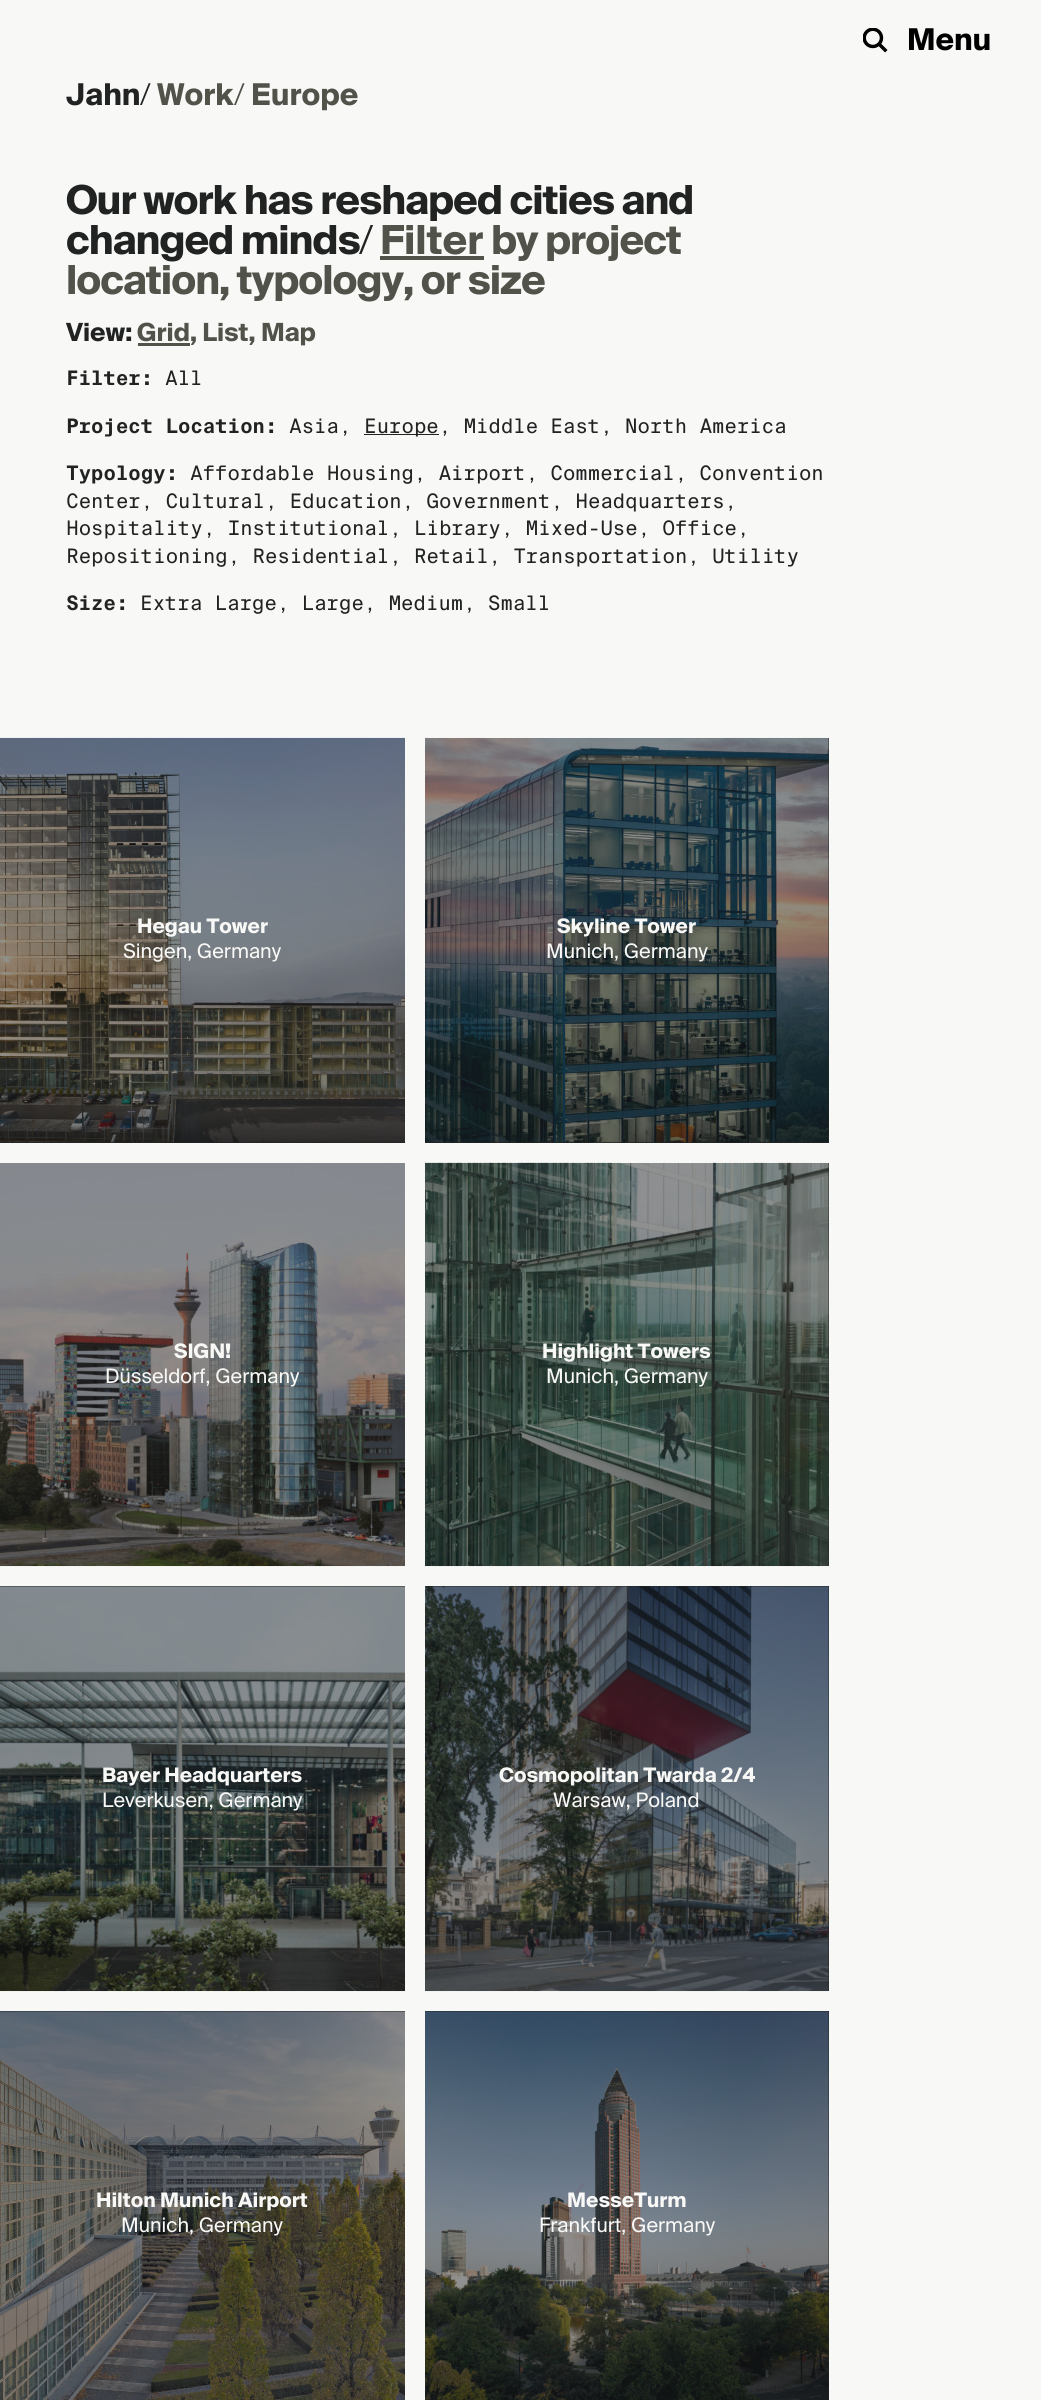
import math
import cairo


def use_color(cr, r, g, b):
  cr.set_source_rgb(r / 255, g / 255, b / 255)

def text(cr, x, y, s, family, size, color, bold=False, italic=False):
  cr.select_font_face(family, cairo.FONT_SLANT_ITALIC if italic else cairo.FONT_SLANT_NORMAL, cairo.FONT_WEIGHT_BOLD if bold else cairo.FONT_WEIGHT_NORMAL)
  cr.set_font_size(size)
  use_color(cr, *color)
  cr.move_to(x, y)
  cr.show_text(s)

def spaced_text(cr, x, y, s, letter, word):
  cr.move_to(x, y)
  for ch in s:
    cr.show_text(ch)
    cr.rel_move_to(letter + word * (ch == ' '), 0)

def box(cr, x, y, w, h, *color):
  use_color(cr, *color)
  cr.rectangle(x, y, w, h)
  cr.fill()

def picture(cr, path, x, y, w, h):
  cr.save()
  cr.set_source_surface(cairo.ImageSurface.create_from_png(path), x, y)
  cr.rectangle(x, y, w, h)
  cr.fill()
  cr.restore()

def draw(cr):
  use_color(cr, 248, 248, 246)
  cr.paint()
  picture(cr, "img_01.png", 863, 28, 25, 25)
  box(cr, 380, 256, 104, 4, 81, 83, 74)
  box(cr, 138, 343, 52, 3, 81, 83, 74)
  box(cr, 364, 434, 75, 1, 33, 35, 34)
  box(cr, 0, 738, 405, 405, 33, 35, 34)
  picture(cr, "img_02.png", 0, 737, 405, 406)
  box(cr, 425, 738, 404, 405, 33, 35, 34)
  picture(cr, "img_03.png", 425, 737, 404, 406)
  box(cr, 0, 1163, 405, 403, 33, 35, 34)
  picture(cr, "img_04.png", 0, 1163, 405, 404)
  box(cr, 425, 1163, 404, 403, 33, 35, 34)
  picture(cr, "img_05.png", 425, 1162, 404, 405)
  box(cr, 0, 1586, 405, 405, 33, 35, 34)
  picture(cr, "img_06.png", 0, 1586, 405, 406)
  box(cr, 425, 1586, 404, 405, 33, 35, 34)
  picture(cr, "img_07.png", 425, 1586, 404, 406)
  box(cr, 0, 2011, 405, 389, 33, 35, 34)
  picture(cr, "img_08.png", 0, 2011, 405, 389)
  box(cr, 425, 2011, 404, 389, 33, 35, 34)
  picture(cr, "img_09.png", 425, 2011, 404, 389)
  text(cr, 907, 50, "Menu", "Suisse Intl", 30, (0, 0, 0), bold=True)
  text(cr, 66, 105, "Jahn", "Suisse Intl", 30, (33, 35, 34), bold=True)
  text(cr, 140, 105, "/", "Suisse Intl Light", 30, (33, 35, 34))
  text(cr, 157, 105, "Work", "Suisse Intl", 30, (81, 83, 74), bold=True)
  text(cr, 234, 105, "/", "Suisse Intl Light", 30, (81, 83, 74))
  text(cr, 251, 105, "Europe", "Suisse Intl", 30, (81, 83, 74), bold=True)
  cr.set_font_size(40)
  use_color(cr, 33, 35, 34)
  spaced_text(cr, 66, 214, "Our work has reshaped cities and", -1, 0)
  spaced_text(cr, 66, 254, "changed minds", -1, 0)
  text(cr, 380, 254, "Filter", "Suisse Intl", 40, (81, 83, 74), bold=True)
  spaced_text(cr, 491, 254, "by project", -1, 0)
  spaced_text(cr, 66, 294, "location, typology, or size", -1, 0)
  cr.select_font_face("Suisse Intl Light")
  use_color(cr, 33, 35, 34)
  spaced_text(cr, 359, 254, "/", -1, 0)
  text(cr, 66, 341, "View:", "Suisse Intl", 25, (33, 35, 34), bold=True)
  text(cr, 137, 341, "Grid, List, Map", "Suisse Intl", 25, (81, 83, 74), bold=True)
  cr.select_font_face("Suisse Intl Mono", cairo.FONT_SLANT_NORMAL, cairo.FONT_WEIGHT_BOLD)
  cr.set_font_size(20)
  use_color(cr, 33, 35, 34)
  spaced_text(cr, 66, 385, "Filter:", -0.5, 0)
  cr.select_font_face("Suisse Intl Mono")
  spaced_text(cr, 165, 385, "All", -0.5, 0)
  cr.select_font_face("Suisse Intl Mono", cairo.FONT_SLANT_NORMAL, cairo.FONT_WEIGHT_BOLD)
  spaced_text(cr, 66, 433, "Project Location:", -0.5, 0)
  cr.select_font_face("Suisse Intl Mono")
  spaced_text(cr, 289, 433, "Asia,", -0.5, 0)
  spaced_text(cr, 364, 433, "Europe, Middle East, North America", -0.5, 0)
  cr.select_font_face("Suisse Intl Mono", cairo.FONT_SLANT_NORMAL, cairo.FONT_WEIGHT_BOLD)
  spaced_text(cr, 66, 480, "Typology:", -0.5, 0)
  cr.select_font_face("Suisse Intl Mono")
  spaced_text(cr, 190, 480, "Affordable Housing, Airport, Commercial, Convention", -0.5, 0)
  spaced_text(cr, 66, 508, "Center, Cultural, Education, Government, Headquarters,", -0.5, 0)
  spaced_text(cr, 66, 535, "Hospitality, Institutional, Library, Mixed-Use, Office,", -0.5, 0)
  spaced_text(cr, 66, 563, "Repositioning, Residential, Retail, Transportation, Utility", -0.5, 0)
  cr.select_font_face("Suisse Intl Mono", cairo.FONT_SLANT_NORMAL, cairo.FONT_WEIGHT_BOLD)
  spaced_text(cr, 66, 610, "Size:", -0.5, 0)
  cr.select_font_face("Suisse Intl Mono")
  spaced_text(cr, 140, 610, "Extra Large, Large, Medium, Small", -0.5, 0)
  text(cr, 137, 933, "Hegau Tower", "Suisse Intl", 20, (248, 248, 246), bold=True)
  text(cr, 123, 958, "Singen, Germany", "Suisse Intl", 20, (248, 248, 246))
  text(cr, 557, 933, "Skyline Tower", "Suisse Intl", 20, (248, 248, 246), bold=True)
  text(cr, 546, 958, "Munich, Germany", "Suisse Intl", 20, (248, 248, 246))
  text(cr, 174, 1358, "SIGN!", "Suisse Intl", 20, (248, 248, 246), bold=True)
  text(cr, 105, 1383, "Düsseldorf, Germany", "Suisse Intl", 20, (248, 248, 246))
  text(cr, 542, 1358, "Highlight Towers", "Suisse Intl", 20, (248, 248, 246), bold=True)
  text(cr, 546, 1383, "Munich, Germany", "Suisse Intl", 20, (248, 248, 246))
  text(cr, 102, 1782, "Bayer Headquarters", "Suisse Intl", 20, (248, 248, 246), bold=True)
  text(cr, 102, 1807, "Leverkusen, Germany", "Suisse Intl", 20, (248, 248, 246))
  text(cr, 499, 1782, "Cosmopolitan Twarda 2/4", "Suisse Intl", 20, (248, 248, 246), bold=True)
  text(cr, 553, 1807, "Warsaw, Poland", "Suisse Intl", 20, (248, 248, 246))
  text(cr, 96, 2207, "Hilton Munich Airport", "Suisse Intl", 20, (248, 248, 246), bold=True)
  text(cr, 121, 2232, "Munich, Germany", "Suisse Intl", 20, (248, 248, 246))
  text(cr, 567, 2207, "MesseTurm", "Suisse Intl", 20, (248, 248, 246), bold=True)
  text(cr, 539, 2232, "Frankfurt, Germany", "Suisse Intl", 20, (248, 248, 246))


surface = cairo.ImageSurface(cairo.FORMAT_RGB24, 1041, 2400)
cr = cairo.Context(surface)
options = cairo.FontOptions()
options.set_hint_metrics(cairo.HINT_METRICS_OFF)
options.set_hint_style(cairo.HINT_STYLE_NONE)
cr.set_font_options(options)
cr.set_miter_limit(4)
draw(cr)
surface.write_to_png("out.png")
